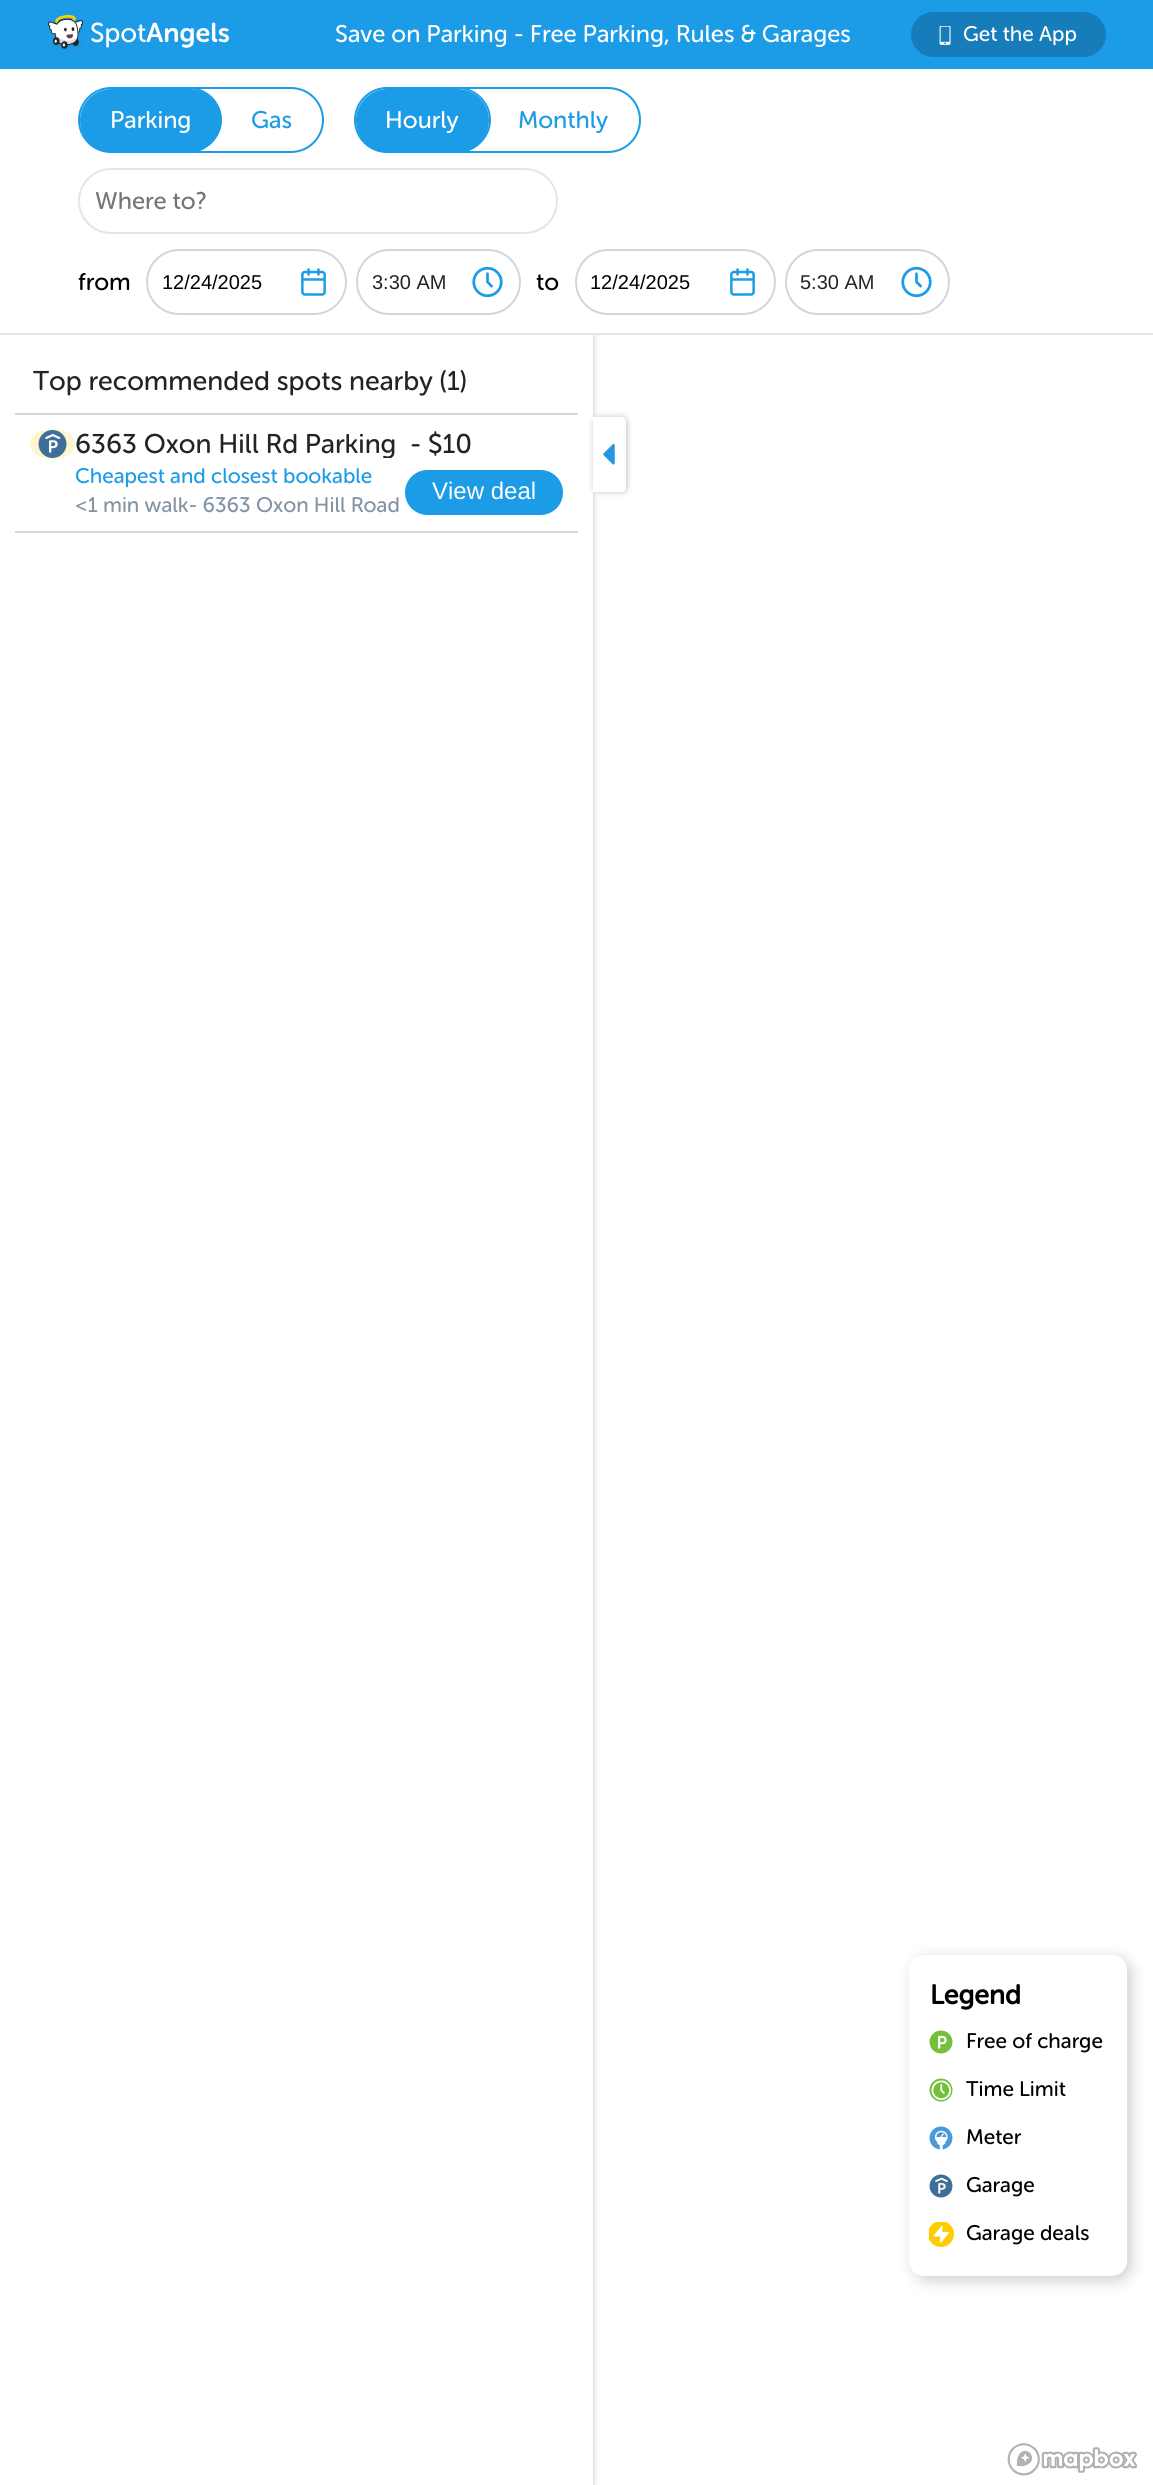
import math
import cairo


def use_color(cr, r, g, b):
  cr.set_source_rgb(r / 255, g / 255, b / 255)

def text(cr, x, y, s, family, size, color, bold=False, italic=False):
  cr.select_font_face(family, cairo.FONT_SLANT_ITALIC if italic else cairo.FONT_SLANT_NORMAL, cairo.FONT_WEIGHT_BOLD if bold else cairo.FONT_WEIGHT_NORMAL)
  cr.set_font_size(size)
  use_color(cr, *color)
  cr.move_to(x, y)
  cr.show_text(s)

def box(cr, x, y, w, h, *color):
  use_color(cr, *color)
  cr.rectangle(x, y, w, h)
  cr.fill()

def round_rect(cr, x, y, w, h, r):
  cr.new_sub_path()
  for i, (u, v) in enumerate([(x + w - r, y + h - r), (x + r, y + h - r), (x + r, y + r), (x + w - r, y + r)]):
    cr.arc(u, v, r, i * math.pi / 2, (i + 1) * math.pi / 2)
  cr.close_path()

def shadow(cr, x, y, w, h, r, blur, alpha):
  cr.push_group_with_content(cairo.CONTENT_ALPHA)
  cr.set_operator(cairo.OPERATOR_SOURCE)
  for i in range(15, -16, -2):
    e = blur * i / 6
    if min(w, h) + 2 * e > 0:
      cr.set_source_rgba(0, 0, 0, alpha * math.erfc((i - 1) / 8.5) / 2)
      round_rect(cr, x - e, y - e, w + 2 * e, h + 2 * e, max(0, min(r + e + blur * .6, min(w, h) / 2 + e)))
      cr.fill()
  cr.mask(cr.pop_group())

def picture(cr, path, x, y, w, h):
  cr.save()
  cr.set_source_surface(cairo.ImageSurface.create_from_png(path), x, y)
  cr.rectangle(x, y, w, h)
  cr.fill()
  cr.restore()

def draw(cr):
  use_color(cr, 255, 255, 255)
  cr.paint()
  box(cr, 0, 0, 1153, 69, 28, 155, 230)
  picture(cr, "img_01.png", 48, 15, 181, 36)
  use_color(cr, 22, 125, 186)
  round_rect(cr, 911, 12, 195, 45, 22.5)
  cr.fill()
  picture(cr, "img_02.png", 939, 26, 12, 19)
  use_color(cr, 0, 0, 0)
  shadow(cr, 0, 335, 593, 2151, 0, 3, 0.25)
  box(cr, 0, 330, 596, 3, 255, 255, 255)
  box(cr, 0, 333, 1153, 2, 224, 230, 234)
  round_rect(cr, 79, 88, 244, 64, 32)
  use_color(cr, 28, 155, 230)
  cr.stroke()
  cr.new_path()
  cr.move_to(200, 89)
  cr.curve_to(213, 94, 222, 106, 222, 120)
  cr.curve_to(222, 135, 211, 148, 197, 152)
  cr.line_to(112, 152)
  cr.curve_to(94, 152, 80, 138, 80, 120)
  cr.curve_to(80, 137, 94, 151, 111, 151)
  cr.line_to(189, 151)
  cr.curve_to(206, 151, 220, 137, 220, 120)
  cr.curve_to(220, 103, 206, 89, 189, 89)
  cr.close_path()
  cr.fill()
  round_rect(cr, 80, 89, 141, 63, 31.5)
  cr.fill()
  round_rect(cr, 355, 88, 285, 64, 32)
  cr.stroke()
  cr.new_path()
  cr.move_to(469, 89)
  cr.curve_to(482, 94, 491, 106, 491, 120)
  cr.curve_to(491, 135, 480, 148, 466, 152)
  cr.line_to(388, 152)
  cr.curve_to(370, 152, 356, 138, 356, 120)
  cr.curve_to(356, 137, 370, 151, 387, 151)
  cr.line_to(458, 151)
  cr.curve_to(475, 151, 489, 137, 489, 120)
  cr.curve_to(489, 103, 475, 89, 458, 89)
  cr.close_path()
  cr.fill()
  round_rect(cr, 356, 89, 133, 63, 31.5)
  cr.fill()
  round_rect(cr, 79, 169, 478, 64, 32)
  use_color(cr, 224, 230, 234)
  cr.stroke()
  picture(cr, "img_03.png", 301, 268, 25, 28)
  round_rect(cr, 147, 250, 199, 64, 32)
  use_color(cr, 206, 214, 222)
  cr.stroke()
  picture(cr, "img_04.png", 472, 266, 31, 32)
  round_rect(cr, 357, 250, 163, 64, 32)
  cr.stroke()
  picture(cr, "img_03.png", 730, 268, 25, 28)
  round_rect(cr, 576, 250, 199, 64, 32)
  cr.stroke()
  picture(cr, "img_04.png", 901, 266, 31, 32)
  round_rect(cr, 786, 250, 163, 64, 32)
  cr.stroke()
  box(cr, 0, 335, 593, 2150, 255, 255, 255)
  box(cr, 15, 413, 563, 2, 206, 214, 222)
  box(cr, 15, 531, 563, 2, 206, 214, 222)
  use_color(cr, 255, 245, 204)
  cr.new_path()
  cr.move_to(52.5, 429)
  cr.curve_to(65, 429, 75, 435.5, 75, 444)
  cr.curve_to(75, 452.5, 65, 459, 52.5, 459)
  cr.curve_to(40, 459, 30, 452.5, 30, 444)
  cr.curve_to(30, 435.5, 40, 429, 52.5, 429)
  cr.close_path()
  cr.fill()
  picture(cr, "img_05.png", 38, 430, 29, 28)
  use_color(cr, 28, 155, 230)
  round_rect(cr, 406, 471, 156, 43, 21.5)
  cr.fill_preserve()
  cr.stroke()
  use_color(cr, 0, 0, 0)
  shadow(cr, 594, 417, 33, 75, 5, 3, 0.25)
  use_color(cr, 255, 255, 255)
  cr.new_path()
  cr.move_to(593, 417)
  cr.line_to(621, 417)
  cr.curve_to(624, 417, 626, 419, 626, 422)
  cr.line_to(626, 487)
  cr.curve_to(626, 490, 624, 492, 621, 492)
  cr.line_to(593, 492)
  cr.close_path()
  cr.fill()
  picture(cr, "img_06.png", 603, 444, 12, 21)
  use_color(cr, 204, 204, 204)
  shadow(cr, 914, 1959, 217, 321, 15, 7.5, 1)
  use_color(cr, 255, 255, 255)
  round_rect(cr, 909, 1955, 218, 321, 15)
  cr.fill()
  picture(cr, "img_07.png", 929, 2030, 24, 24)
  picture(cr, "img_08.png", 929, 2078, 24, 24)
  picture(cr, "img_09.png", 929, 2126, 24, 24)
  picture(cr, "img_10.png", 929, 2174, 24, 24)
  picture(cr, "img_11.png", 929, 2222, 25, 25)
  picture(cr, "img_12.png", 1007, 2443, 130, 33)
  text(cr, 335, 42, "Save on Parking - Free Parking, Rules & Garages", "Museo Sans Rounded", 24, (255, 255, 255))
  text(cr, 963, 41, "Get the App", "Museo Sans Rounded", 21, (255, 255, 255))
  text(cr, 110, 128, "Parking", "Museo Sans Rounded", 24, (255, 255, 255))
  text(cr, 251, 128, "Gas", "Museo Sans Rounded", 24, (28, 155, 230))
  text(cr, 385, 128, "Hourly", "Museo Sans Rounded", 24, (255, 255, 255))
  text(cr, 518, 128, "Monthly", "Museo Sans Rounded", 24, (28, 155, 230))
  text(cr, 95, 209, "Where to?", "Museo Sans Rounded", 24, (117, 117, 117))
  text(cr, 78, 290, "from", "Museo Sans Rounded", 24, (0, 0, 0))
  text(cr, 162, 289, "12/24/2025", "Liberation Sans", 20, (0, 0, 0))
  text(cr, 372, 289, "3:30 AM", "Liberation Sans", 20, (33, 37, 41))
  text(cr, 536, 290, "to", "Museo Sans Rounded", 24, (0, 0, 0))
  text(cr, 590, 289, "12/24/2025", "Liberation Sans", 20, (0, 0, 0))
  text(cr, 800, 289, "5:30 AM", "Liberation Sans", 20, (33, 37, 41))
  text(cr, 33, 390, "Top recommended spots nearby (1)", "Museo Sans Rounded", 27, (33, 37, 41))
  cr.save()
  cr.rectangle(75, 431, 321, 27)
  cr.clip()
  text(cr, 75, 453, "6363 Oxon Hill Rd Parking", "Museo Sans Rounded", 27, (33, 37, 41))
  cr.restore()
  text(cr, 410, 453, "- $10", "Museo Sans Rounded", 27, (33, 37, 41))
  text(cr, 75, 483, "Cheapest and closest bookable", "Museo Sans Rounded", 21, (28, 155, 230))
  text(cr, 432, 499, "View deal", "Liberation Sans", 24, (255, 255, 255))
  text(cr, 75, 512, "<1 min walk- 6363 Oxon Hill Road", "Museo Sans Rounded", 21, (130, 147, 163))
  text(cr, 930, 2004, "Legend", "Museo Sans Rounded", 27, (0, 0, 0), bold=True)
  text(cr, 966, 2048, "Free of charge", "Museo Sans Rounded", 21, (0, 0, 0))
  text(cr, 966, 2096, "Time Limit", "Museo Sans Rounded", 21, (0, 0, 0))
  text(cr, 966, 2144, "Meter", "Museo Sans Rounded", 21, (0, 0, 0))
  text(cr, 966, 2192, "Garage", "Museo Sans Rounded", 21, (0, 0, 0))
  text(cr, 966, 2240, "Garage deals", "Museo Sans Rounded", 21, (0, 0, 0))


surface = cairo.ImageSurface(cairo.FORMAT_RGB24, 1153, 2485)
cr = cairo.Context(surface)
options = cairo.FontOptions()
options.set_hint_metrics(cairo.HINT_METRICS_OFF)
options.set_hint_style(cairo.HINT_STYLE_NONE)
cr.set_font_options(options)
cr.set_miter_limit(4)
draw(cr)
surface.write_to_png("out.png")
